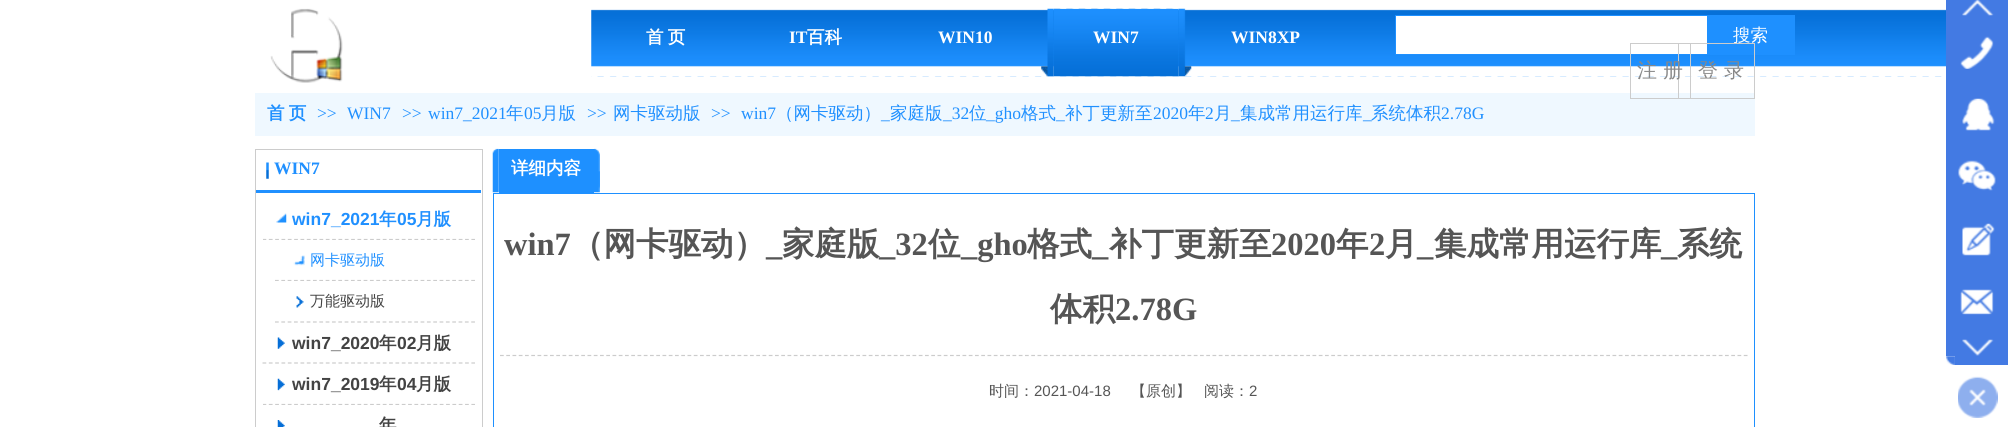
import math
import cairo


def use_color(cr, r, g, b):
  cr.set_source_rgb(r / 255, g / 255, b / 255)

def text(cr, x, y, s, family, size, color, bold=False, italic=False):
  cr.select_font_face(family, cairo.FONT_SLANT_ITALIC if italic else cairo.FONT_SLANT_NORMAL, cairo.FONT_WEIGHT_BOLD if bold else cairo.FONT_WEIGHT_NORMAL)
  cr.set_font_size(size)
  use_color(cr, *color)
  cr.move_to(x, y)
  cr.show_text(s)

def spaced_text(cr, x, y, s, letter, word):
  cr.move_to(x, y)
  for ch in s:
    cr.show_text(ch)
    cr.rel_move_to(letter + word * (ch == ' '), 0)

def box(cr, x, y, w, h, *color):
  use_color(cr, *color)
  cr.rectangle(x, y, w, h)
  cr.fill()

def picture(cr, path, x, y, w, h):
  cr.save()
  cr.set_source_surface(cairo.ImageSurface.create_from_png(path), x, y)
  cr.rectangle(x, y, w, h)
  cr.fill()
  cr.restore()

def draw(cr):
  use_color(cr, 255, 255, 255)
  cr.paint()
  picture(cr, "img_01.png", 270, 8, 73, 75)
  picture(cr, "img_02.png", 591, 9, 1355, 68)
  picture(cr, "img_03.png", 1041, 8, 13, 69)
  picture(cr, "img_04.png", 1053, 8, 126, 69)
  picture(cr, "img_05.png", 1178, 8, 14, 69)
  use_color(cr, 255, 255, 255)
  cr.rectangle(1395.5, 15.5, 312, 39)
  cr.fill_preserve()
  use_color(cr, 30, 144, 255)
  cr.set_line_width(1)
  cr.stroke()
  box(cr, 1708, 15, 87, 40, 30, 144, 255)
  box(cr, 1946, 0, 62, 356, 67, 122, 227)
  picture(cr, "img_06.png", 1962, 0, 32, 16)
  picture(cr, "img_07.png", 1960, 36, 34, 33)
  picture(cr, "img_08.png", 1962, 98, 33, 33)
  picture(cr, "img_09.png", 1958, 160, 38, 31)
  picture(cr, "img_10.png", 1962, 223, 33, 33)
  picture(cr, "img_11.png", 1960, 289, 34, 26)
  picture(cr, "img_12.png", 1962, 339, 32, 17)
  picture(cr, "img_13.png", 1946, 356, 9, 9)
  box(cr, 1955, 356, 53, 9, 67, 122, 227)
  picture(cr, "img_14.png", 1958, 376, 40, 42)
  box(cr, 255, 93, 1500, 43, 239, 248, 255)
  cr.rectangle(255.5, 149.5, 227, 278)
  use_color(cr, 204, 204, 204)
  cr.stroke()
  picture(cr, "img_15.png", 266, 162, 3, 17)
  box(cr, 256, 190, 225, 3, 32, 144, 255)
  cr.save()
  cr.rectangle(263, 199, 212, 41)
  cr.clip()
  cr.new_path()
  cr.move_to(262.5, 239.5)
  cr.line_to(475, 239.5)
  use_color(cr, 204, 204, 204)
  cr.set_line_width(1.2)
  cr.set_dash([3.75, 2.58])
  cr.stroke()
  cr.restore()
  picture(cr, "img_16.png", 276, 213, 11, 10)
  cr.save()
  cr.rectangle(263, 240, 212, 41)
  cr.clip()
  cr.new_path()
  cr.move_to(275, 280.5)
  cr.line_to(475, 280.5)
  use_color(cr, 204, 204, 204)
  cr.set_line_width(1.2)
  cr.set_dash([3.75, 2.58])
  cr.stroke()
  cr.restore()
  picture(cr, "img_17.png", 293, 255, 12, 11)
  cr.new_path()
  cr.move_to(275, 322)
  cr.line_to(475, 322)
  use_color(cr, 204, 204, 204)
  cr.set_line_width(1.2)
  cr.set_dash([3.75, 2.58])
  cr.stroke()
  picture(cr, "img_18.png", 296, 296, 8, 12)
  cr.new_path()
  cr.move_to(262.5, 363)
  cr.line_to(475, 363)
  cr.stroke()
  picture(cr, "img_19.png", 277, 337, 8, 12)
  cr.save()
  cr.rectangle(263, 364, 212, 41)
  cr.clip()
  cr.new_path()
  cr.move_to(262.5, 404.5)
  cr.line_to(475, 404.5)
  cr.stroke()
  cr.restore()
  picture(cr, "img_20.png", 277, 378, 8, 13)
  picture(cr, "img_21.png", 277, 420, 8, 7)
  picture(cr, "img_22.png", 492, 148, 7, 45)
  box(cr, 499, 149, 95, 44, 30, 144, 255)
  picture(cr, "img_23.png", 594, 148, 6, 45)
  cr.rectangle(493.5, 193.5, 1261, 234)
  cr.set_line_width(1)
  cr.set_dash([])
  cr.stroke()
  cr.new_path()
  cr.move_to(500, 355.5)
  cr.line_to(1747.5, 355.5)
  use_color(cr, 204, 204, 204)
  cr.set_line_width(1.2)
  cr.set_dash([3.75, 2.5])
  cr.stroke()
  cr.select_font_face("WenQuanYi Zen Hei", cairo.FONT_SLANT_NORMAL, cairo.FONT_WEIGHT_BOLD)
  cr.set_font_size(17.5)
  use_color(cr, 255, 255, 255)
  spaced_text(cr, 646, 43, "首 页", 0, -1)
  text(cr, 789, 43, "IT", "Liberation Serif", 17.5, (255, 255, 255), bold=True)
  text(cr, 807, 43, "百科", "WenQuanYi Zen Hei", 17.5, (255, 255, 255), bold=True)
  text(cr, 938, 43, "WIN10", "Liberation Serif", 17.5, (255, 255, 255), bold=True)
  text(cr, 1093, 43, "WIN7", "Liberation Serif", 17.5, (255, 255, 255), bold=True)
  text(cr, 1231, 43, "WIN8XP", "Liberation Serif", 17.5, (255, 255, 255), bold=True)
  text(cr, 1733, 41, "搜索", "WenQuanYi Zen Hei Medium", 17.5, (255, 255, 255))
  cr.rectangle(1678.5, 43.5, 76, 55)
  use_color(cr, 204, 204, 204)
  cr.set_line_width(1)
  cr.set_dash([])
  cr.stroke()
  cr.rectangle(1630.5, 43.5, 60, 55)
  cr.stroke()
  text(cr, 1637, 77, "注 册", "WenQuanYi Zen Hei Medium", 20, (136, 136, 136))
  text(cr, 1698, 77, "登 录", "WenQuanYi Zen Hei Medium", 20, (136, 136, 136))
  cr.select_font_face("WenQuanYi Zen Hei", cairo.FONT_SLANT_NORMAL, cairo.FONT_WEIGHT_BOLD)
  cr.set_font_size(17.5)
  use_color(cr, 32, 144, 255)
  spaced_text(cr, 267, 119, "首 页", 0, -1)
  text(cr, 317, 119, ">>", "Liberation Serif", 17.5, (32, 144, 255))
  text(cr, 347, 119, "WIN7", "Liberation Serif", 17.5, (32, 144, 255))
  text(cr, 402, 119, ">>", "Liberation Serif", 17.5, (32, 144, 255))
  text(cr, 428, 119, "win7_2021", "Liberation Serif", 17.5, (32, 144, 255))
  text(cr, 506, 119, "年", "WenQuanYi Zen Hei Medium", 17.5, (32, 144, 255))
  text(cr, 524, 119, "05", "Liberation Serif", 17.5, (32, 144, 255))
  text(cr, 541, 119, "月版", "WenQuanYi Zen Hei Medium", 17.5, (32, 144, 255))
  text(cr, 587, 119, ">>", "Liberation Serif", 17.5, (32, 144, 255))
  text(cr, 613, 119, "网卡驱动版", "WenQuanYi Zen Hei Medium", 17.5, (32, 144, 255))
  text(cr, 711, 119, ">>", "Liberation Serif", 17.5, (32, 144, 255))
  text(cr, 741, 119, "win7", "Liberation Serif", 17.5, (32, 144, 255))
  text(cr, 776, 119, "（网卡驱动）", "WenQuanYi Zen Hei Medium", 17.5, (32, 144, 255))
  text(cr, 969, 119, "位", "WenQuanYi Zen Hei Medium", 17.5, (32, 144, 255))
  text(cr, 986, 119, "_gho", "Liberation Serif", 17.5, (32, 144, 255))
  text(cr, 1021, 119, "格式", "WenQuanYi Zen Hei Medium", 17.5, (32, 144, 255))
  text(cr, 1153, 119, "2020", "Liberation Serif", 17.5, (32, 144, 255))
  text(cr, 1188, 119, "年", "WenQuanYi Zen Hei Medium", 17.5, (32, 144, 255))
  text(cr, 1205, 119, "2", "Liberation Serif", 17.5, (32, 144, 255))
  text(cr, 1214, 119, "月", "WenQuanYi Zen Hei Medium", 17.5, (32, 144, 255))
  text(cr, 1441, 119, "2.78G", "Liberation Serif", 17.5, (32, 144, 255))
  text(cr, 881, 119, "_", "Liberation Serif", 17.5, (32, 144, 255))
  text(cr, 890, 119, "家庭版", "WenQuanYi Zen Hei Medium", 17.5, (32, 144, 255))
  text(cr, 943, 119, "_32", "Liberation Serif", 17.5, (32, 144, 255))
  text(cr, 1056, 119, "_", "Liberation Serif", 17.5, (32, 144, 255))
  text(cr, 1065, 119, "补丁更新至", "WenQuanYi Zen Hei Medium", 17.5, (32, 144, 255))
  text(cr, 1231, 119, "_", "Liberation Serif", 17.5, (32, 144, 255))
  text(cr, 1240, 119, "集成常用运行库", "WenQuanYi Zen Hei Medium", 17.5, (32, 144, 255))
  text(cr, 1363, 119, "_", "Liberation Serif", 17.5, (32, 144, 255))
  text(cr, 1371, 119, "系统体积", "WenQuanYi Zen Hei Medium", 17.5, (32, 144, 255))
  text(cr, 274, 174, "WIN7", "Liberation Serif", 17.5, (32, 144, 255), bold=True)
  text(cr, 292, 225, "win7_2021", "Liberation Sans", 17.5, (32, 144, 255), bold=True)
  text(cr, 379, 225, "年", "WenQuanYi Zen Hei", 17.5, (32, 144, 255), bold=True)
  text(cr, 397, 225, "05", "Liberation Sans", 17.5, (32, 144, 255), bold=True)
  text(cr, 416, 225, "月版", "WenQuanYi Zen Hei", 17.5, (32, 144, 255), bold=True)
  text(cr, 310, 265, "网卡驱动版", "WenQuanYi Zen Hei Medium", 15, (32, 144, 255))
  text(cr, 310, 306, "万能驱动版", "WenQuanYi Zen Hei Medium", 15, (67, 67, 67))
  text(cr, 292, 349, "win7_2020", "Liberation Sans", 17.5, (67, 67, 67), bold=True)
  text(cr, 379, 349, "年", "WenQuanYi Zen Hei", 17.5, (67, 67, 67), bold=True)
  text(cr, 397, 349, "02", "Liberation Sans", 17.5, (67, 67, 67), bold=True)
  text(cr, 416, 349, "月版", "WenQuanYi Zen Hei", 17.5, (67, 67, 67), bold=True)
  text(cr, 292, 390, "win7_2019", "Liberation Sans", 17.5, (67, 67, 67), bold=True)
  text(cr, 379, 390, "年", "WenQuanYi Zen Hei", 17.5, (67, 67, 67), bold=True)
  text(cr, 397, 390, "04", "Liberation Sans", 17.5, (67, 67, 67), bold=True)
  text(cr, 416, 390, "月版", "WenQuanYi Zen Hei", 17.5, (67, 67, 67), bold=True)
  text(cr, 379, 431, "年", "WenQuanYi Zen Hei", 17.5, (67, 67, 67), bold=True)
  text(cr, 511, 174, "详细内容", "WenQuanYi Zen Hei", 17.5, (255, 255, 255), bold=True)
  text(cr, 504, 255, "win7", "Liberation Serif", 32.5, (85, 85, 85), bold=True)
  text(cr, 571, 255, "（网卡驱动）", "WenQuanYi Zen Hei", 32.5, (85, 85, 85), bold=True)
  text(cr, 879, 255, "_32", "Liberation Serif", 32.5, (85, 85, 85), bold=True)
  text(cr, 928, 255, "位", "WenQuanYi Zen Hei", 32.5, (85, 85, 85), bold=True)
  text(cr, 961, 255, "_gho", "Liberation Serif", 32.5, (85, 85, 85), bold=True)
  text(cr, 1027, 255, "格式", "WenQuanYi Zen Hei", 32.5, (85, 85, 85), bold=True)
  text(cr, 1109, 255, "补丁更新至", "WenQuanYi Zen Hei", 32.5, (85, 85, 85), bold=True)
  text(cr, 1271, 255, "2020", "Liberation Serif", 32.5, (85, 85, 85), bold=True)
  text(cr, 1336, 255, "年", "WenQuanYi Zen Hei", 32.5, (85, 85, 85), bold=True)
  text(cr, 1369, 255, "2", "Liberation Serif", 32.5, (85, 85, 85), bold=True)
  text(cr, 1385, 255, "月", "WenQuanYi Zen Hei", 32.5, (85, 85, 85), bold=True)
  text(cr, 1434, 255, "集成常用运行库", "WenQuanYi Zen Hei", 32.5, (85, 85, 85), bold=True)
  text(cr, 1677, 255, "系统", "WenQuanYi Zen Hei", 32.5, (85, 85, 85), bold=True)
  text(cr, 766, 255, "_", "Liberation Serif", 32.5, (85, 85, 85), bold=True)
  text(cr, 782, 255, "家庭版", "WenQuanYi Zen Hei", 32.5, (85, 85, 85), bold=True)
  text(cr, 1092, 255, "_", "Liberation Serif", 32.5, (85, 85, 85), bold=True)
  text(cr, 1417, 255, "_", "Liberation Serif", 32.5, (85, 85, 85), bold=True)
  text(cr, 1661, 255, "_", "Liberation Serif", 32.5, (85, 85, 85), bold=True)
  text(cr, 1050, 320, "体积", "WenQuanYi Zen Hei", 32.5, (85, 85, 85), bold=True)
  text(cr, 1115, 320, "2.78G", "Liberation Serif", 32.5, (85, 85, 85), bold=True)
  text(cr, 989, 396, "时间：", "WenQuanYi Zen Hei Medium", 15, (85, 85, 85))
  text(cr, 1034, 396, "2021-04-18", "Liberation Sans", 15, (85, 85, 85))
  text(cr, 1131, 396, "【原创】", "WenQuanYi Zen Hei Medium", 15, (85, 85, 85))
  text(cr, 1204, 396, "阅读：", "WenQuanYi Zen Hei Medium", 15, (85, 85, 85))
  text(cr, 1249, 396, "2", "Liberation Sans", 15, (85, 85, 85))


surface = cairo.ImageSurface(cairo.FORMAT_RGB24, 2008, 427)
cr = cairo.Context(surface)
options = cairo.FontOptions()
options.set_hint_metrics(cairo.HINT_METRICS_OFF)
options.set_hint_style(cairo.HINT_STYLE_NONE)
cr.set_font_options(options)
cr.set_miter_limit(4)
draw(cr)
surface.write_to_png("out.png")
